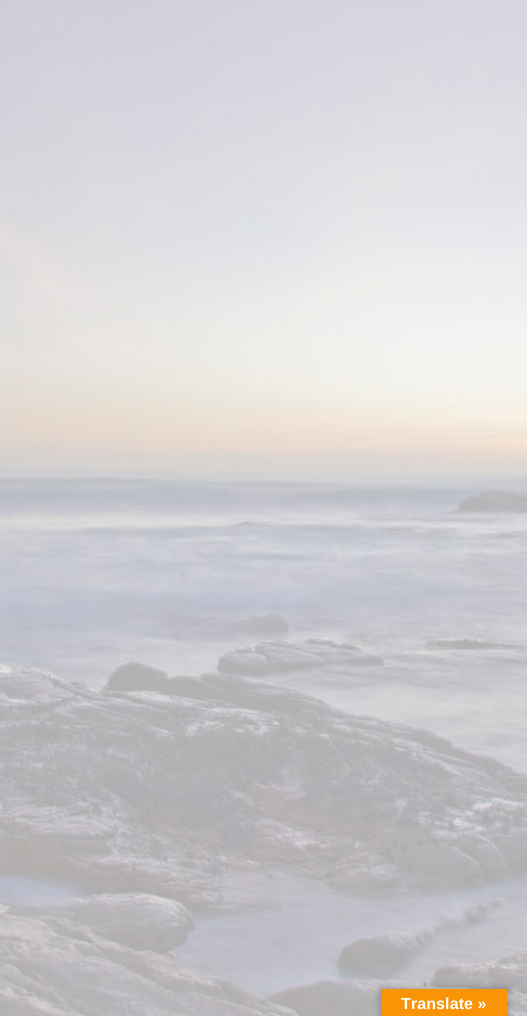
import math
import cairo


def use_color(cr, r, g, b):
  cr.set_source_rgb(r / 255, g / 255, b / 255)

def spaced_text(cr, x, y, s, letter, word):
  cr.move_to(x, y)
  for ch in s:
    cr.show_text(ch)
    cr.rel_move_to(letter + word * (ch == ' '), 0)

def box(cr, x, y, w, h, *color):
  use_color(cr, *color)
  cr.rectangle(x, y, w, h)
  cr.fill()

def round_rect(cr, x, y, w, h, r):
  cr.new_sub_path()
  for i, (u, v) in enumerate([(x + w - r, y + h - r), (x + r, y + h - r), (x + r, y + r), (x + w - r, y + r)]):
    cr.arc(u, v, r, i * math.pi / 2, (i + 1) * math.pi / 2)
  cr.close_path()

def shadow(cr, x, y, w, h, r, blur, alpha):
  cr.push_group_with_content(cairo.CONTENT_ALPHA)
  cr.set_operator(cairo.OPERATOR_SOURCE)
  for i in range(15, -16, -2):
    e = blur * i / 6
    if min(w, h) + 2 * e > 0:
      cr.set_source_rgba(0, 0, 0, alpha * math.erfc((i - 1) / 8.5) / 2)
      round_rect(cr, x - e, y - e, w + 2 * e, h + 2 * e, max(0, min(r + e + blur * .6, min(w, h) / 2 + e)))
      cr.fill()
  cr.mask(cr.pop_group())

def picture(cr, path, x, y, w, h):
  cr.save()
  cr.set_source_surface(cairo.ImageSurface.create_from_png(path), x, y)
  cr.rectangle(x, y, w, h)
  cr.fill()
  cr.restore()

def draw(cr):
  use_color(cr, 255, 255, 255)
  cr.paint()
  picture(cr, "img_01.png", 0, 0, 527, 1016)
  use_color(cr, 0, 0, 0)
  shadow(cr, 381, 989, 126, 27, 0, 4.5, 0.3)
  box(cr, 381, 989, 126, 27, 248, 148, 6)
  cr.select_font_face("Liberation Sans", cairo.FONT_SLANT_NORMAL, cairo.FONT_WEIGHT_BOLD)
  cr.set_font_size(16)
  use_color(cr, 255, 255, 255)
  spaced_text(cr, 401, 1009, "Translate »", 0.1, 0)


surface = cairo.ImageSurface(cairo.FORMAT_RGB24, 527, 1016)
cr = cairo.Context(surface)
options = cairo.FontOptions()
options.set_hint_metrics(cairo.HINT_METRICS_OFF)
options.set_hint_style(cairo.HINT_STYLE_NONE)
cr.set_font_options(options)
cr.set_miter_limit(4)
draw(cr)
surface.write_to_png("out.png")
